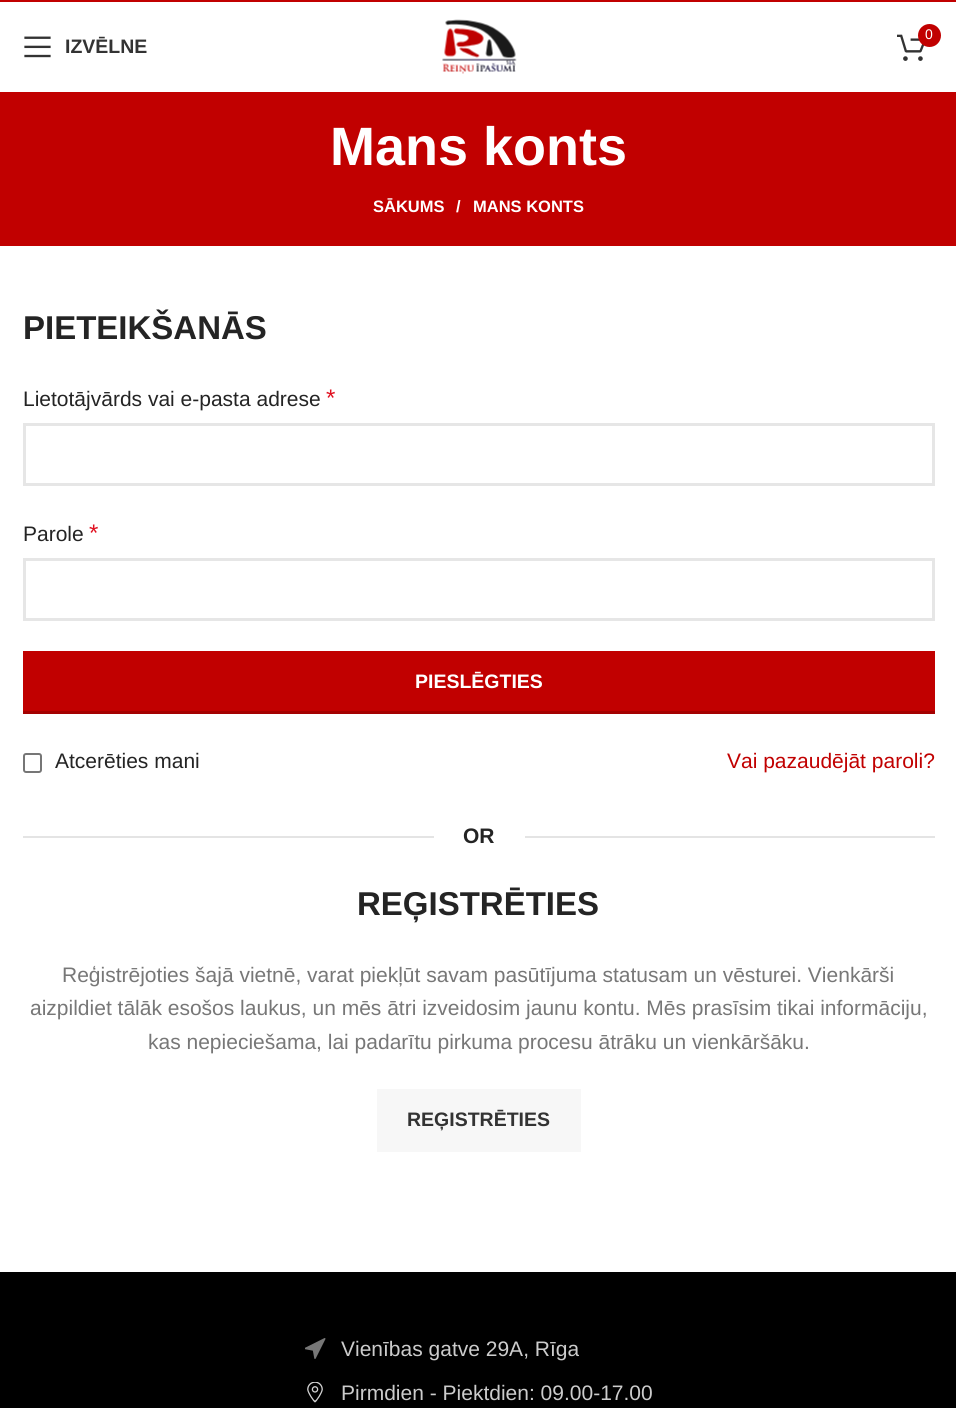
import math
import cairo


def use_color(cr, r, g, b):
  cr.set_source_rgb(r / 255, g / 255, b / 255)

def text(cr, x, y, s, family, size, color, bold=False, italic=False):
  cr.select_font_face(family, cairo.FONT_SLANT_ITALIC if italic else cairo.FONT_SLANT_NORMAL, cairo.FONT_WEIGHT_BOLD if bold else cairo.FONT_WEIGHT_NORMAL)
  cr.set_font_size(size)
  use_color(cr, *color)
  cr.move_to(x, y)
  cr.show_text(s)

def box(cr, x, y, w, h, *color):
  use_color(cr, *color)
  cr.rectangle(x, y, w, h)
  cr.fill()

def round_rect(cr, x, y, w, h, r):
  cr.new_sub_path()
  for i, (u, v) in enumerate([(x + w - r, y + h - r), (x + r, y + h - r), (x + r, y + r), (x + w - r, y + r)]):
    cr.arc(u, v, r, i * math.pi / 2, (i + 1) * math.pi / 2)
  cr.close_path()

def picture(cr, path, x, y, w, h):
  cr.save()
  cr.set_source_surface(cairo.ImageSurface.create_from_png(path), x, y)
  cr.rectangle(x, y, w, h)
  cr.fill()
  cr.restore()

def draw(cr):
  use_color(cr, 255, 255, 255)
  cr.paint()
  box(cr, 0, 0, 956, 2, 193, 0, 0)
  picture(cr, "img_01.png", 442, 19, 75, 55)
  picture(cr, "img_02.png", 897, 34, 28, 27)
  cr.arc(929.5, 35.5, 11.5, 0, 2 * math.pi)
  cr.fill()
  picture(cr, "img_03.png", 24, 36, 27, 22)
  box(cr, 0, 92, 956, 154, 193, 0, 0)
  cr.rectangle(24.5, 424.5, 909, 60)
  use_color(cr, 230, 230, 230)
  cr.set_line_width(3)
  cr.stroke()
  cr.rectangle(24.5, 559.5, 909, 60)
  cr.stroke()
  box(cr, 23, 651, 912, 60, 193, 0, 0)
  box(cr, 23, 711, 912, 3, 164, 0, 0)
  round_rect(cr, 24, 754, 17, 18, 2)
  use_color(cr, 118, 118, 118)
  cr.set_line_width(2)
  cr.stroke()
  box(cr, 23, 836, 411, 2, 228, 228, 228)
  box(cr, 525, 836, 410, 2, 228, 228, 228)
  box(cr, 377, 1089, 204, 63, 247, 247, 247)
  box(cr, 0, 1272, 956, 136, 0, 0, 0)
  picture(cr, "img_04.png", 305, 1338, 21, 21)
  picture(cr, "img_05.png", 307, 1382, 16, 21)
  text(cr, 925, 39, "0", "Liberation Sans", 14, (255, 255, 255))
  text(cr, 65, 53, "IZVĒLNE", "Liberation Sans", 19.5, (51, 51, 51), bold=True)
  text(cr, 330, 165, "Mans konts", "Liberation Sans", 54, (255, 255, 255), bold=True)
  text(cr, 373, 212, "SĀKUMS", "Liberation Sans", 16.5, (255, 255, 255), bold=True)
  text(cr, 456, 212, "/", "Liberation Sans", 16.5, (255, 255, 255), bold=True)
  text(cr, 473, 212, "MANS KONTS", "Liberation Sans", 16.5, (255, 255, 255), bold=True)
  text(cr, 23, 339, "PIETEIKŠANĀS", "Liberation Sans", 33, (36, 36, 36), bold=True)
  text(cr, 23, 406, "Lietotājvārds vai e-pasta adrese", "Liberation Sans", 21, (36, 36, 36))
  text(cr, 326, 406, "*", "Liberation Sans", 24, (224, 16, 32))
  text(cr, 23, 541, "Parole", "Liberation Sans", 21, (36, 36, 36))
  text(cr, 89, 541, "*", "Liberation Sans", 24, (224, 16, 32))
  text(cr, 415, 688, "PIESLĒGTIES", "Liberation Sans", 19.5, (255, 255, 255), bold=True)
  text(cr, 55, 768, "Atcerēties mani", "Liberation Sans", 21, (36, 36, 36))
  text(cr, 727, 768, "Vai pazaudējāt paroli?", "Liberation Sans", 21, (193, 0, 0))
  text(cr, 463, 843, "OR", "Liberation Sans", 21, (36, 36, 36), bold=True)
  text(cr, 357, 915, "REĢISTRĒTIES", "Liberation Sans", 33, (36, 36, 36), bold=True)
  text(cr, 62, 982, "Reģistrējoties šajā vietnē, varat piekļūt savam pasūtījuma statusam un vēsturei. Vienkārši", "Liberation Sans", 21, (119, 119, 119))
  text(cr, 30, 1015, "aizpildiet tālāk esošos laukus, un mēs ātri izveidosim jaunu kontu. Mēs prasīsim tikai informāciju,", "Liberation Sans", 21, (119, 119, 119))
  text(cr, 148, 1049, "kas nepieciešama, lai padarītu pirkuma procesu ātrāku un vienkāršāku.", "Liberation Sans", 21, (119, 119, 119))
  text(cr, 407, 1126, "REĢISTRĒTIES", "Liberation Sans", 19.5, (51, 51, 51), bold=True)
  text(cr, 341, 1356, "Vienības gatve 29A, Rīga", "Liberation Sans", 21, (204, 204, 204))
  text(cr, 341, 1400, "Pirmdien - Piektdien: 09.00-17.00", "Liberation Sans", 21, (204, 204, 204))


surface = cairo.ImageSurface(cairo.FORMAT_RGB24, 956, 1408)
cr = cairo.Context(surface)
options = cairo.FontOptions()
options.set_hint_metrics(cairo.HINT_METRICS_OFF)
options.set_hint_style(cairo.HINT_STYLE_NONE)
cr.set_font_options(options)
cr.set_miter_limit(4)
draw(cr)
surface.write_to_png("out.png")
